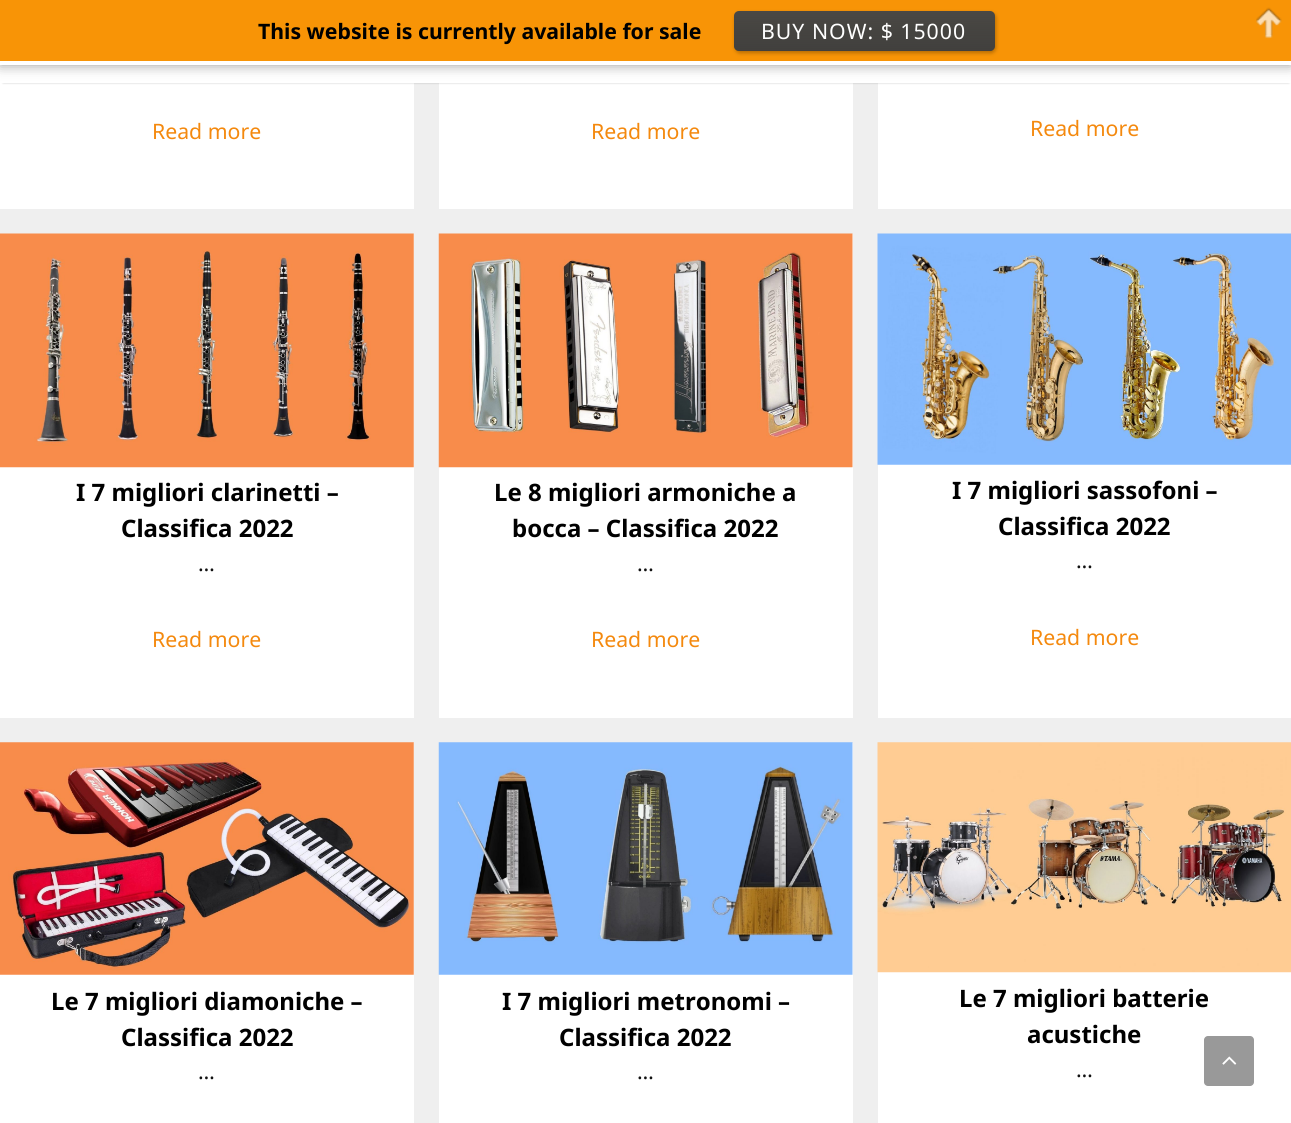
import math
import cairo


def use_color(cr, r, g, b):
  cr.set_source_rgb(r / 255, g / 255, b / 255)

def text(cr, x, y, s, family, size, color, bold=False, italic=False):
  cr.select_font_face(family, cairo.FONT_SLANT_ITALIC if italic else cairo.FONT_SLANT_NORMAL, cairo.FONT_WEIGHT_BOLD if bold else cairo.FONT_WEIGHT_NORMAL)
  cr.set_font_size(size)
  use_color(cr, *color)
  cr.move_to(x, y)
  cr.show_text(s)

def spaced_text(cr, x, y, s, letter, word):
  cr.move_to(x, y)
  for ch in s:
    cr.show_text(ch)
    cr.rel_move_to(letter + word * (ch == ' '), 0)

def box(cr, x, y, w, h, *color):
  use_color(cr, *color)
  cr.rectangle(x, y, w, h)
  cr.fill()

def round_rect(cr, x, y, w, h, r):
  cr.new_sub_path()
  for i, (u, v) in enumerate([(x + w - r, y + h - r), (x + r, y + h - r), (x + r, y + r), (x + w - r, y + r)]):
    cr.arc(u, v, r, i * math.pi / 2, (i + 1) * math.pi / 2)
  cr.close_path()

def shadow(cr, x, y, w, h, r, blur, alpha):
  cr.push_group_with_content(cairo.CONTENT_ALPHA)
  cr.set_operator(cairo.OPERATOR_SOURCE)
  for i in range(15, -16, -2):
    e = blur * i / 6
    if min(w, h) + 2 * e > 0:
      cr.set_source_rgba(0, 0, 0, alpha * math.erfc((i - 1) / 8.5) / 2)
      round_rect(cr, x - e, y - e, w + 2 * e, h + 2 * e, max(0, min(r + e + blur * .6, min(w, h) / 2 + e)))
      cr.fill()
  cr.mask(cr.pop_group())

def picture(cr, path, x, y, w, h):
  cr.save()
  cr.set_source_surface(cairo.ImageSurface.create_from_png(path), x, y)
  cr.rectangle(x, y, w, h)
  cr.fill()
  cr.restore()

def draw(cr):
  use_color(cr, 239, 239, 239)
  cr.paint()
  box(cr, 0, 83, 414, 126, 255, 255, 255)
  box(cr, 439, 83, 414, 126, 255, 255, 255)
  box(cr, 878, 83, 413, 126, 255, 255, 255)
  use_color(cr, 0, 0, 0)
  shadow(cr, 3, 5, 1286, 78, 0, 1, 0.2)
  box(cr, 0, 65, 1291, 18, 255, 255, 255)
  use_color(cr, 0, 0, 0)
  shadow(cr, 0, 0, 1291, 65, 0, 6.5, 0.4)
  box(cr, 0, 0, 1291, 61, 248, 148, 6)
  box(cr, 0, 61, 1291, 4, 255, 255, 255)
  use_color(cr, 0, 0, 0)
  shadow(cr, 735, 13, 261, 40, 5, 2, 0.28)
  use_color(cr, 74, 72, 68)
  round_rect(cr, 734, 11, 261, 40, 5)
  cr.fill()
  gradient = cairo.LinearGradient(734, 11, 734, 51)
  gradient.add_color_stop_rgba(0, 0.2, 0.2, 0.2, 0)
  gradient.add_color_stop_rgba(1, 0.2, 0.2, 0.2, 0.4)
  cr.set_source(gradient)
  round_rect(cr, 734, 11, 261, 40, 5)
  cr.fill()
  picture(cr, "img_01.png", 1256, 7, 26, 32)
  box(cr, 0, 234, 414, 484, 255, 255, 255)
  picture(cr, "img_02.png", 0, 233, 414, 235)
  box(cr, 439, 234, 414, 484, 255, 255, 255)
  picture(cr, "img_03.png", 438, 233, 415, 235)
  box(cr, 878, 464, 413, 254, 255, 255, 255)
  picture(cr, "img_04.png", 877, 233, 414, 232)
  box(cr, 0, 743, 414, 380, 255, 255, 255)
  picture(cr, "img_05.png", 0, 742, 414, 233)
  box(cr, 439, 743, 414, 380, 255, 255, 255)
  picture(cr, "img_06.png", 438, 742, 415, 233)
  box(cr, 878, 972, 413, 151, 255, 255, 255)
  picture(cr, "img_07.png", 877, 742, 414, 231)
  use_color(cr, 153, 153, 153)
  round_rect(cr, 1204, 1036, 50, 50, 4)
  cr.fill()
  picture(cr, "img_08.png", 1222, 1056, 15, 9)
  text(cr, 258, 39, "This website is currently available for sale", "Noto Sans", 21.25, (0, 0, 0), bold=True)
  cr.select_font_face("Noto Sans")
  use_color(cr, 255, 255, 255)
  spaced_text(cr, 761, 39, "BUY NOW: $ 15000", 1, 0)
  text(cr, 152, 139, "Read more", "Noto Sans", 21.25, (244, 137, 14))
  text(cr, 591, 139, "Read more", "Noto Sans", 21.25, (244, 137, 14))
  text(cr, 1030, 136, "Read more", "Noto Sans", 21.25, (244, 137, 14))
  text(cr, 76, 501, "I 7 migliori clarinetti –", "Noto Sans", 24, (0, 0, 0), bold=True)
  text(cr, 121, 537, "Classifica 2022", "Noto Sans", 24, (0, 0, 0), bold=True)
  text(cr, 198, 571, "…", "Noto Sans", 21.25, (17, 17, 17))
  text(cr, 152, 647, "Read more", "Noto Sans", 21.25, (244, 137, 14))
  text(cr, 494, 501, "Le 8 migliori armoniche a", "Noto Sans", 24, (0, 0, 0), bold=True)
  text(cr, 512, 537, "bocca – Classifica 2022", "Noto Sans", 24, (0, 0, 0), bold=True)
  text(cr, 637, 571, "…", "Noto Sans", 21.25, (17, 17, 17))
  text(cr, 591, 647, "Read more", "Noto Sans", 21.25, (244, 137, 14))
  text(cr, 952, 499, "I 7 migliori sassofoni –", "Noto Sans", 24, (0, 0, 0), bold=True)
  text(cr, 998, 535, "Classifica 2022", "Noto Sans", 24, (0, 0, 0), bold=True)
  text(cr, 1076, 568, "…", "Noto Sans", 21.25, (17, 17, 17))
  text(cr, 1030, 645, "Read more", "Noto Sans", 21.25, (244, 137, 14))
  text(cr, 51, 1010, "Le 7 migliori diamoniche –", "Noto Sans", 24, (0, 0, 0), bold=True)
  text(cr, 121, 1046, "Classifica 2022", "Noto Sans", 24, (0, 0, 0), bold=True)
  text(cr, 198, 1079, "…", "Noto Sans", 21.25, (17, 17, 17))
  text(cr, 502, 1010, "I 7 migliori metronomi –", "Noto Sans", 24, (0, 0, 0), bold=True)
  text(cr, 559, 1046, "Classifica 2022", "Noto Sans", 24, (0, 0, 0), bold=True)
  text(cr, 637, 1079, "…", "Noto Sans", 21.25, (17, 17, 17))
  text(cr, 959, 1007, "Le 7 migliori batterie", "Noto Sans", 24, (0, 0, 0), bold=True)
  text(cr, 1027, 1043, "acustiche", "Noto Sans", 24, (0, 0, 0), bold=True)
  text(cr, 1076, 1077, "…", "Noto Sans", 21.25, (17, 17, 17))


surface = cairo.ImageSurface(cairo.FORMAT_RGB24, 1291, 1123)
cr = cairo.Context(surface)
options = cairo.FontOptions()
options.set_hint_metrics(cairo.HINT_METRICS_OFF)
options.set_hint_style(cairo.HINT_STYLE_NONE)
cr.set_font_options(options)
cr.set_miter_limit(4)
draw(cr)
surface.write_to_png("out.png")
